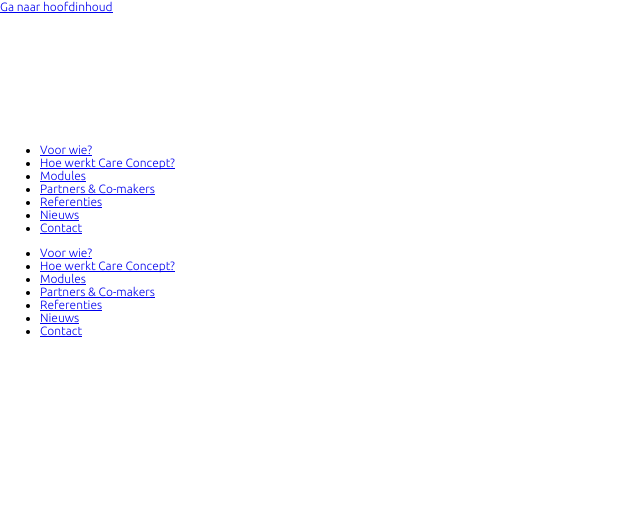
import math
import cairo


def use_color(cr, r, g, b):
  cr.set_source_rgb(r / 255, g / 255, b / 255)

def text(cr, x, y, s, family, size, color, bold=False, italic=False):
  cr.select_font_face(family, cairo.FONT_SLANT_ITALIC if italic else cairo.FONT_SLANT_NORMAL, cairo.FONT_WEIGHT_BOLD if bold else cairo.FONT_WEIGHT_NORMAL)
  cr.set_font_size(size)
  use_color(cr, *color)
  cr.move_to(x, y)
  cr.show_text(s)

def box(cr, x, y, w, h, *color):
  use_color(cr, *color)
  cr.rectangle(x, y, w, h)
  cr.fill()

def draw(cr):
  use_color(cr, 255, 255, 255)
  cr.paint()
  box(cr, 0, 12, 113, 1, 0, 0, 238)
  use_color(cr, 0, 0, 0)
  cr.arc(28, 151, 2, 0, 2 * math.pi)
  cr.fill()
  box(cr, 40, 155, 52, 1, 0, 0, 238)
  use_color(cr, 0, 0, 0)
  cr.arc(28, 164, 2, 0, 2 * math.pi)
  cr.fill()
  box(cr, 40, 168, 135, 1, 0, 0, 238)
  use_color(cr, 0, 0, 0)
  cr.arc(28, 177, 2, 0, 2 * math.pi)
  cr.fill()
  box(cr, 40, 181, 46, 1, 0, 0, 238)
  use_color(cr, 0, 0, 0)
  cr.arc(28, 190, 2, 0, 2 * math.pi)
  cr.fill()
  box(cr, 40, 194, 115, 1, 0, 0, 238)
  use_color(cr, 0, 0, 0)
  cr.arc(28, 203, 2, 0, 2 * math.pi)
  cr.fill()
  box(cr, 40, 207, 62, 1, 0, 0, 238)
  use_color(cr, 0, 0, 0)
  cr.arc(28, 216, 2, 0, 2 * math.pi)
  cr.fill()
  box(cr, 40, 220, 39, 1, 0, 0, 238)
  use_color(cr, 0, 0, 0)
  cr.arc(28, 229, 2, 0, 2 * math.pi)
  cr.fill()
  box(cr, 40, 233, 42, 1, 0, 0, 238)
  use_color(cr, 0, 0, 0)
  cr.arc(28, 254, 2, 0, 2 * math.pi)
  cr.fill()
  box(cr, 40, 258, 52, 1, 0, 0, 238)
  use_color(cr, 0, 0, 0)
  cr.arc(28, 267, 2, 0, 2 * math.pi)
  cr.fill()
  box(cr, 40, 271, 135, 1, 0, 0, 238)
  use_color(cr, 0, 0, 0)
  cr.arc(28, 280, 2, 0, 2 * math.pi)
  cr.fill()
  box(cr, 40, 284, 46, 1, 0, 0, 238)
  use_color(cr, 0, 0, 0)
  cr.arc(28, 293, 2, 0, 2 * math.pi)
  cr.fill()
  box(cr, 40, 297, 115, 1, 0, 0, 238)
  use_color(cr, 0, 0, 0)
  cr.arc(28, 306, 2, 0, 2 * math.pi)
  cr.fill()
  box(cr, 40, 310, 62, 1, 0, 0, 238)
  use_color(cr, 0, 0, 0)
  cr.arc(28, 319, 2, 0, 2 * math.pi)
  cr.fill()
  box(cr, 40, 323, 39, 1, 0, 0, 238)
  use_color(cr, 0, 0, 0)
  cr.arc(28, 332, 2, 0, 2 * math.pi)
  cr.fill()
  box(cr, 40, 336, 42, 1, 0, 0, 238)
  text(cr, 0, 11, "Ga naar hoofdinhoud", "Ubuntu Light", 12, (0, 0, 238))
  text(cr, 40, 154, "Voor wie?", "Ubuntu Light", 12, (0, 0, 238))
  text(cr, 40, 167, "Hoe werkt Care Concept?", "Ubuntu Light", 12, (0, 0, 238))
  text(cr, 40, 180, "Modules", "Ubuntu Light", 12, (0, 0, 238))
  text(cr, 40, 193, "Partners & Co-makers", "Ubuntu Light", 12, (0, 0, 238))
  text(cr, 40, 206, "Referenties", "Ubuntu Light", 12, (0, 0, 238))
  text(cr, 40, 219, "Nieuws", "Ubuntu Light", 12, (0, 0, 238))
  text(cr, 40, 232, "Contact", "Ubuntu Light", 12, (0, 0, 238))
  text(cr, 40, 257, "Voor wie?", "Ubuntu Light", 12, (0, 0, 238))
  text(cr, 40, 270, "Hoe werkt Care Concept?", "Ubuntu Light", 12, (0, 0, 238))
  text(cr, 40, 283, "Modules", "Ubuntu Light", 12, (0, 0, 238))
  text(cr, 40, 296, "Partners & Co-makers", "Ubuntu Light", 12, (0, 0, 238))
  text(cr, 40, 309, "Referenties", "Ubuntu Light", 12, (0, 0, 238))
  text(cr, 40, 322, "Nieuws", "Ubuntu Light", 12, (0, 0, 238))
  text(cr, 40, 335, "Contact", "Ubuntu Light", 12, (0, 0, 238))


surface = cairo.ImageSurface(cairo.FORMAT_RGB24, 629, 520)
cr = cairo.Context(surface)
options = cairo.FontOptions()
options.set_hint_metrics(cairo.HINT_METRICS_OFF)
options.set_hint_style(cairo.HINT_STYLE_NONE)
cr.set_font_options(options)
cr.set_miter_limit(4)
draw(cr)
surface.write_to_png("out.png")
